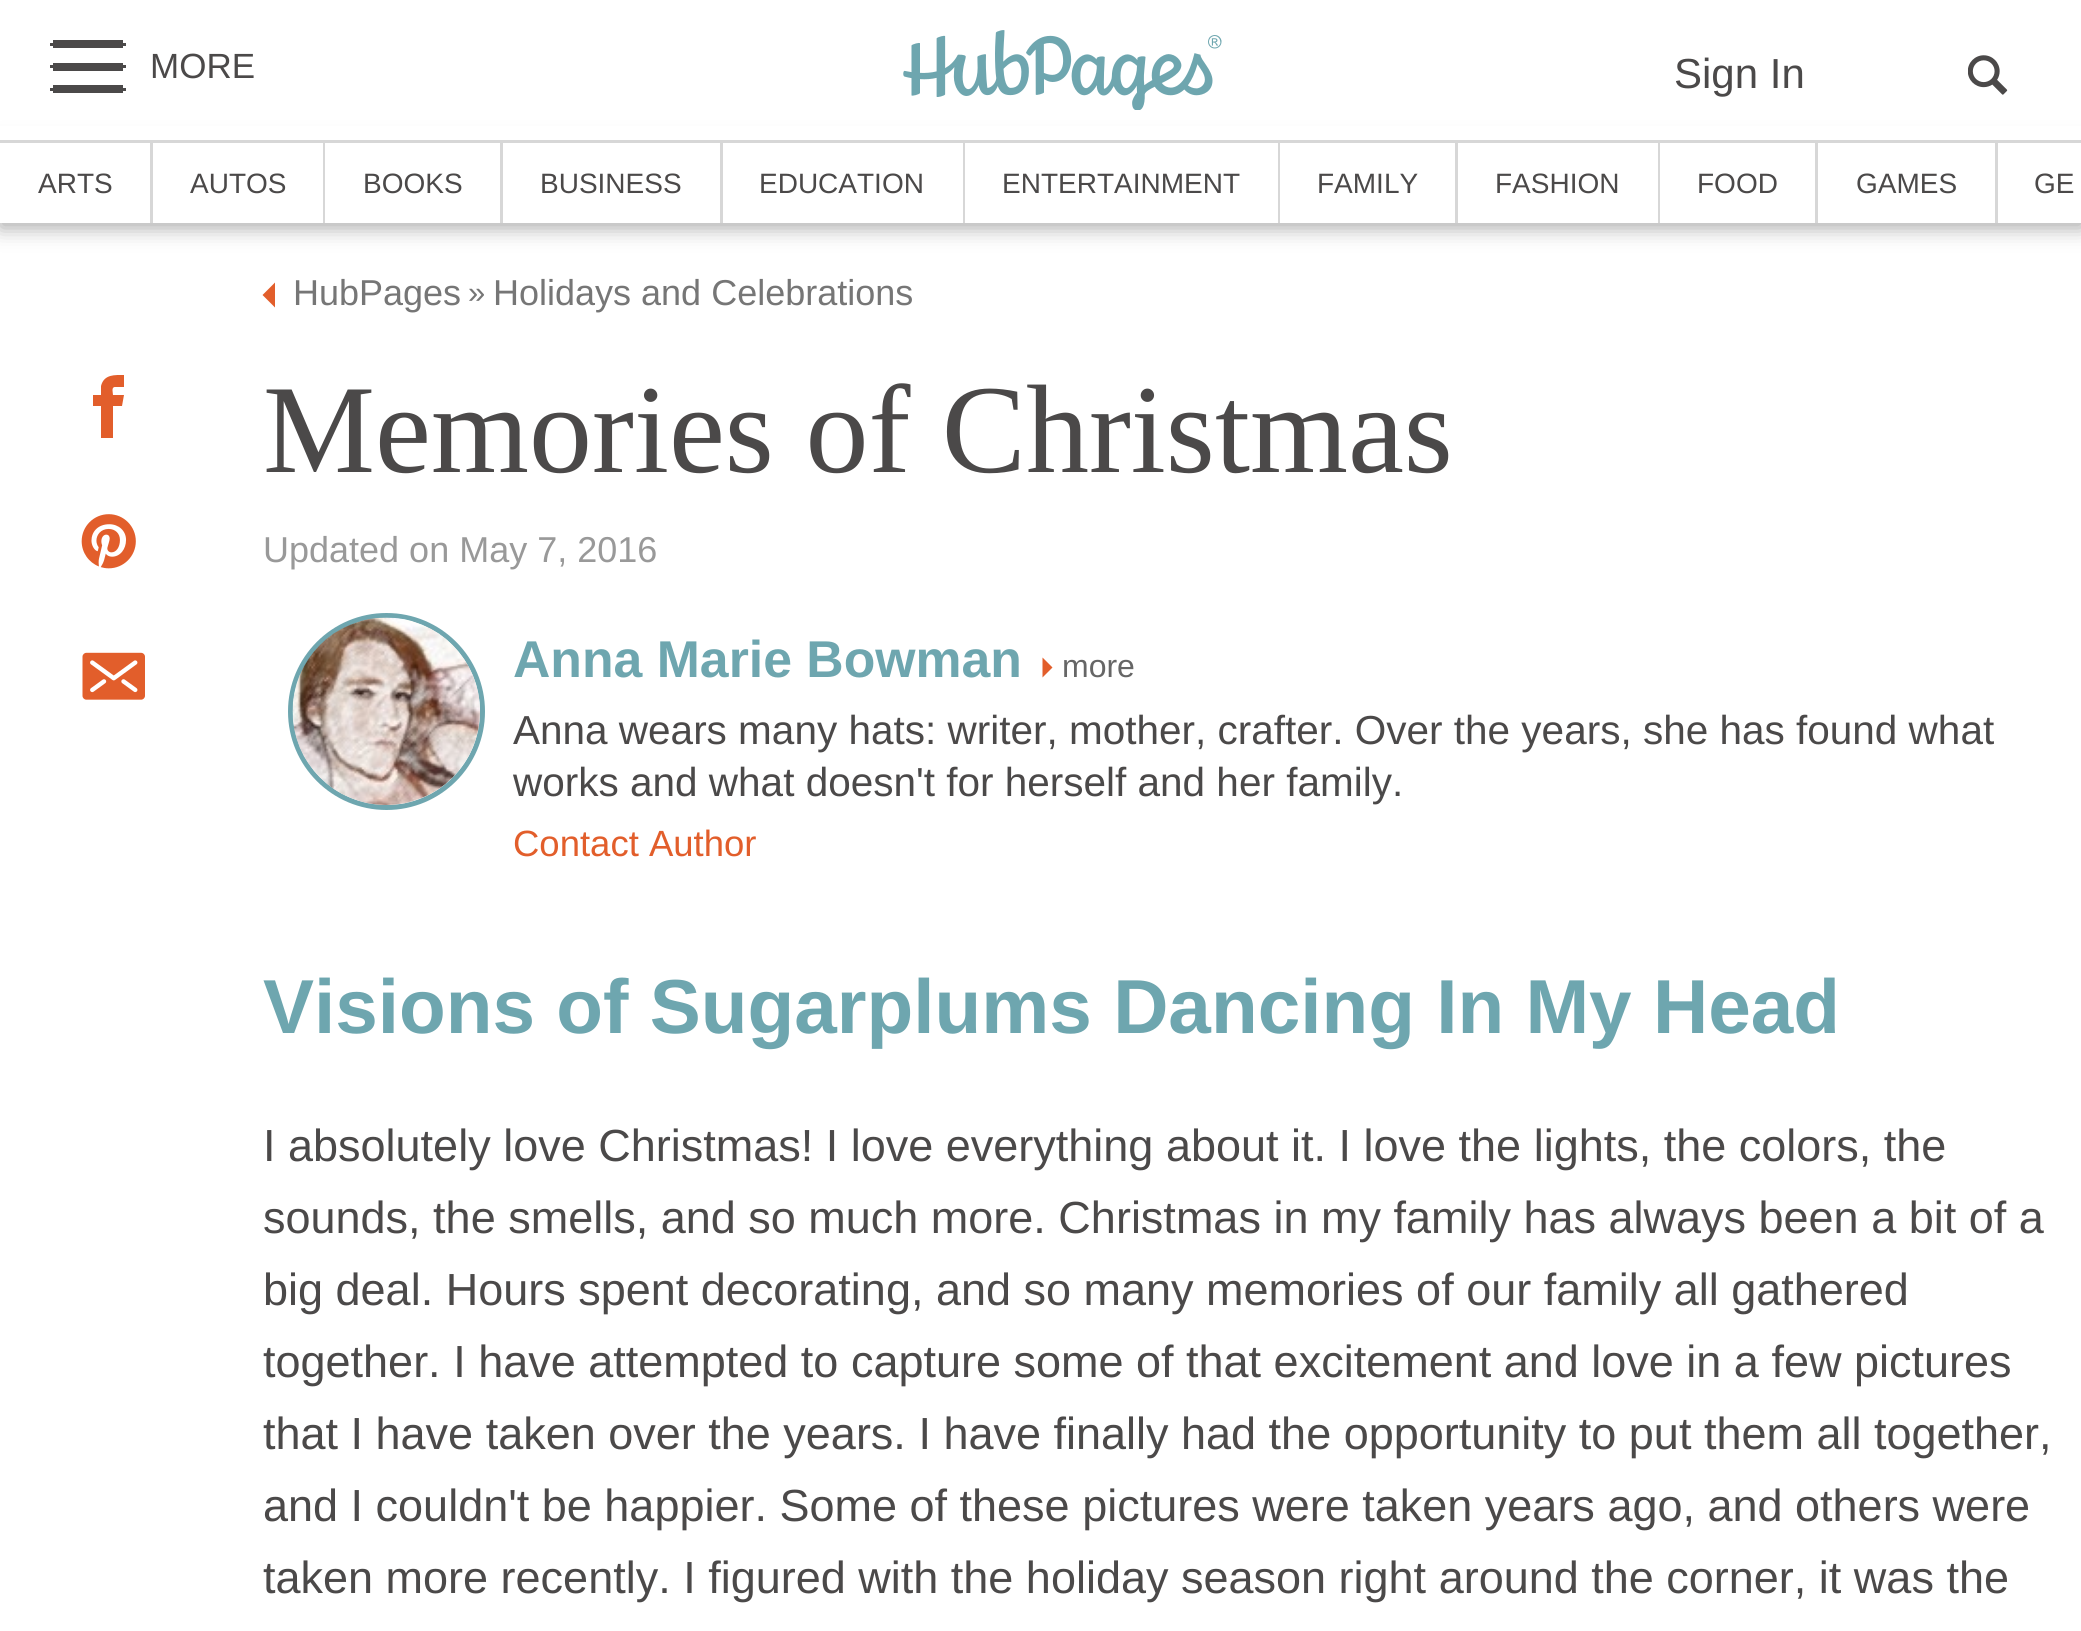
import math
import cairo


def use_color(cr, r, g, b):
  cr.set_source_rgb(r / 255, g / 255, b / 255)

def text(cr, x, y, s, family, size, color, bold=False, italic=False):
  cr.select_font_face(family, cairo.FONT_SLANT_ITALIC if italic else cairo.FONT_SLANT_NORMAL, cairo.FONT_WEIGHT_BOLD if bold else cairo.FONT_WEIGHT_NORMAL)
  cr.set_font_size(size)
  use_color(cr, *color)
  cr.move_to(x, y)
  cr.show_text(s)

def box(cr, x, y, w, h, *color):
  use_color(cr, *color)
  cr.rectangle(x, y, w, h)
  cr.fill()

def round_rect(cr, x, y, w, h, r):
  cr.new_sub_path()
  for i, (u, v) in enumerate([(x + w - r, y + h - r), (x + r, y + h - r), (x + r, y + r), (x + w - r, y + r)]):
    cr.arc(u, v, r, i * math.pi / 2, (i + 1) * math.pi / 2)
  cr.close_path()

def shadow(cr, x, y, w, h, r, blur, alpha):
  cr.push_group_with_content(cairo.CONTENT_ALPHA)
  cr.set_operator(cairo.OPERATOR_SOURCE)
  for i in range(15, -16, -2):
    e = blur * i / 6
    if min(w, h) + 2 * e > 0:
      cr.set_source_rgba(0, 0, 0, alpha * math.erfc((i - 1) / 8.5) / 2)
      round_rect(cr, x - e, y - e, w + 2 * e, h + 2 * e, max(0, min(r + e + blur * .6, min(w, h) / 2 + e)))
      cr.fill()
  cr.mask(cr.pop_group())

def picture(cr, path, x, y, w, h):
  cr.save()
  cr.set_source_surface(cairo.ImageSurface.create_from_png(path), x, y)
  cr.rectangle(x, y, w, h)
  cr.fill()
  cr.restore()

def draw(cr):
  use_color(cr, 255, 255, 255)
  cr.paint()
  use_color(cr, 170, 170, 170)
  shadow(cr, 0, 145, 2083, 83, 0, 10, 1)
  box(cr, 0, 126, 2081, 14, 255, 255, 255)
  box(cr, 0, 140, 2081, 3, 215, 215, 215)
  box(cr, 118, 43, 8, 3, 75, 73, 73)
  box(cr, 53, 40, 70, 8, 75, 73, 73)
  box(cr, 50, 43, 8, 3, 75, 73, 73)
  box(cr, 118, 65, 8, 3, 75, 73, 73)
  box(cr, 53, 63, 70, 8, 75, 73, 73)
  box(cr, 50, 65, 8, 3, 75, 73, 73)
  box(cr, 118, 88, 8, 3, 75, 73, 73)
  box(cr, 53, 85, 70, 8, 75, 73, 73)
  box(cr, 50, 88, 8, 3, 75, 73, 73)
  picture(cr, "img_01.png", 903, 30, 319, 80)
  picture(cr, "img_02.png", 1968, 55, 40, 40)
  box(cr, 0, 143, 2081, 80, 255, 255, 255)
  box(cr, 150, 143, 3, 80, 215, 215, 215)
  box(cr, 323, 143, 2, 80, 215, 215, 215)
  box(cr, 500, 143, 3, 80, 215, 215, 215)
  box(cr, 720, 143, 3, 80, 215, 215, 215)
  box(cr, 963, 143, 2, 80, 215, 215, 215)
  box(cr, 1278, 143, 2, 80, 215, 215, 215)
  box(cr, 1455, 143, 3, 80, 215, 215, 215)
  box(cr, 1658, 143, 2, 80, 215, 215, 215)
  box(cr, 1815, 143, 3, 80, 215, 215, 215)
  box(cr, 1995, 143, 3, 80, 215, 215, 215)
  use_color(cr, 226, 94, 43)
  cr.new_path()
  cr.move_to(115, 387)
  cr.line_to(124, 387)
  cr.line_to(124, 375)
  cr.curve_to(115, 375, 104, 374, 101, 386)
  cr.line_to(101, 395)
  cr.line_to(93, 395)
  cr.line_to(93, 406)
  cr.line_to(101, 406)
  cr.line_to(101, 438)
  cr.line_to(113, 438)
  cr.line_to(113, 406)
  cr.line_to(122, 406)
  cr.line_to(124, 395)
  cr.line_to(113, 395)
  cr.curve_to(113, 393, 111, 387, 115, 387)
  cr.close_path()
  cr.fill()
  picture(cr, "img_03.png", 81, 514, 55, 55)
  picture(cr, "img_04.png", 82, 652, 63, 48)
  cr.new_path()
  cr.move_to(275, 282.5)
  cr.line_to(275, 307.5)
  cr.line_to(262.5, 295)
  cr.close_path()
  cr.fill()
  cr.arc(386.5, 711.5, 96, 0, 2 * math.pi)
  use_color(cr, 110, 166, 175)
  cr.set_line_width(5)
  cr.stroke()
  picture(cr, "img_05.png", 292, 617, 188, 188)
  use_color(cr, 226, 94, 43)
  cr.new_path()
  cr.move_to(1042.5, 677.5)
  cr.line_to(1042.5, 657.5)
  cr.line_to(1052.5, 667.5)
  cr.close_path()
  cr.fill()
  text(cr, 150, 78, "MORE", "Liberation Sans", 35, (75, 73, 73))
  text(cr, 1674, 88, "Sign In", "Liberation Sans", 42, (75, 73, 73))
  text(cr, 38, 193, "ARTS", "Liberation Sans", 28, (75, 73, 73))
  text(cr, 190, 193, "AUTOS", "Liberation Sans", 28, (75, 73, 73))
  text(cr, 363, 193, "BOOKS", "Liberation Sans", 28, (75, 73, 73))
  text(cr, 540, 193, "BUSINESS", "Liberation Sans", 28, (75, 73, 73))
  text(cr, 759, 193, "EDUCATION", "Liberation Sans", 28, (75, 73, 73))
  text(cr, 1002, 193, "ENTERTAINMENT", "Liberation Sans", 28, (75, 73, 73))
  text(cr, 1317, 193, "FAMILY", "Liberation Sans", 28, (75, 73, 73))
  text(cr, 1495, 193, "FASHION", "Liberation Sans", 28, (75, 73, 73))
  text(cr, 1697, 193, "FOOD", "Liberation Sans", 28, (75, 73, 73))
  text(cr, 1856, 193, "GAMES", "Liberation Sans", 28, (75, 73, 73))
  text(cr, 2034, 193, "GE", "Liberation Sans", 28, (75, 73, 73))
  text(cr, 293, 305, "HubPages", "Liberation Sans", 36, (118, 118, 118))
  text(cr, 468, 303, "»", "Liberation Sans", 31, (118, 118, 118))
  text(cr, 493, 305, "Holidays and Celebrations", "Liberation Sans", 36, (118, 118, 118))
  text(cr, 263, 472, "Memories of Christmas", "Liberation Serif", 126, (75, 73, 73))
  text(cr, 263, 562, "Updated on May 7, 2016", "Liberation Sans", 36, (153, 153, 153))
  text(cr, 513, 677, "Anna Marie Bowman", "Liberation Sans", 51.75, (110, 166, 175), bold=True)
  text(cr, 1062, 677, "more", "Liberation Sans", 32, (102, 102, 102))
  text(cr, 513, 744, "Anna wears many hats: writer, mother, crafter. Over the years, she has found what", "Liberation Sans", 40.5, (75, 73, 73))
  text(cr, 513, 796, "works and what doesn't for herself and her family.", "Liberation Sans", 40.5, (75, 73, 73))
  text(cr, 513, 856, "Contact Author", "Liberation Sans", 36.5, (226, 94, 43))
  text(cr, 263, 1033, "Visions of Sugarplums Dancing In My Head", "Liberation Sans", 76.5, (110, 166, 175), bold=True)
  text(cr, 263, 1161, "I absolutely love Christmas! I love everything about it. I love the lights, the colors, the", "Liberation Sans", 45, (75, 73, 73))
  text(cr, 263, 1233, "sounds, the smells, and so much more. Christmas in my family has always been a bit of a", "Liberation Sans", 45, (75, 73, 73))
  text(cr, 263, 1305, "big deal. Hours spent decorating, and so many memories of our family all gathered", "Liberation Sans", 45, (75, 73, 73))
  text(cr, 263, 1377, "together. I have attempted to capture some of that excitement and love in a few pictures", "Liberation Sans", 45, (75, 73, 73))
  text(cr, 263, 1449, "that I have taken over the years. I have finally had the opportunity to put them all together,", "Liberation Sans", 45, (75, 73, 73))
  text(cr, 263, 1521, "and I couldn't be happier. Some of these pictures were taken years ago, and others were", "Liberation Sans", 45, (75, 73, 73))
  text(cr, 263, 1593, "taken more recently. I figured with the holiday season right around the corner, it was the", "Liberation Sans", 45, (75, 73, 73))


surface = cairo.ImageSurface(cairo.FORMAT_RGB24, 2081, 1631)
cr = cairo.Context(surface)
options = cairo.FontOptions()
options.set_hint_metrics(cairo.HINT_METRICS_OFF)
options.set_hint_style(cairo.HINT_STYLE_NONE)
cr.set_font_options(options)
cr.set_miter_limit(4)
draw(cr)
surface.write_to_png("out.png")
